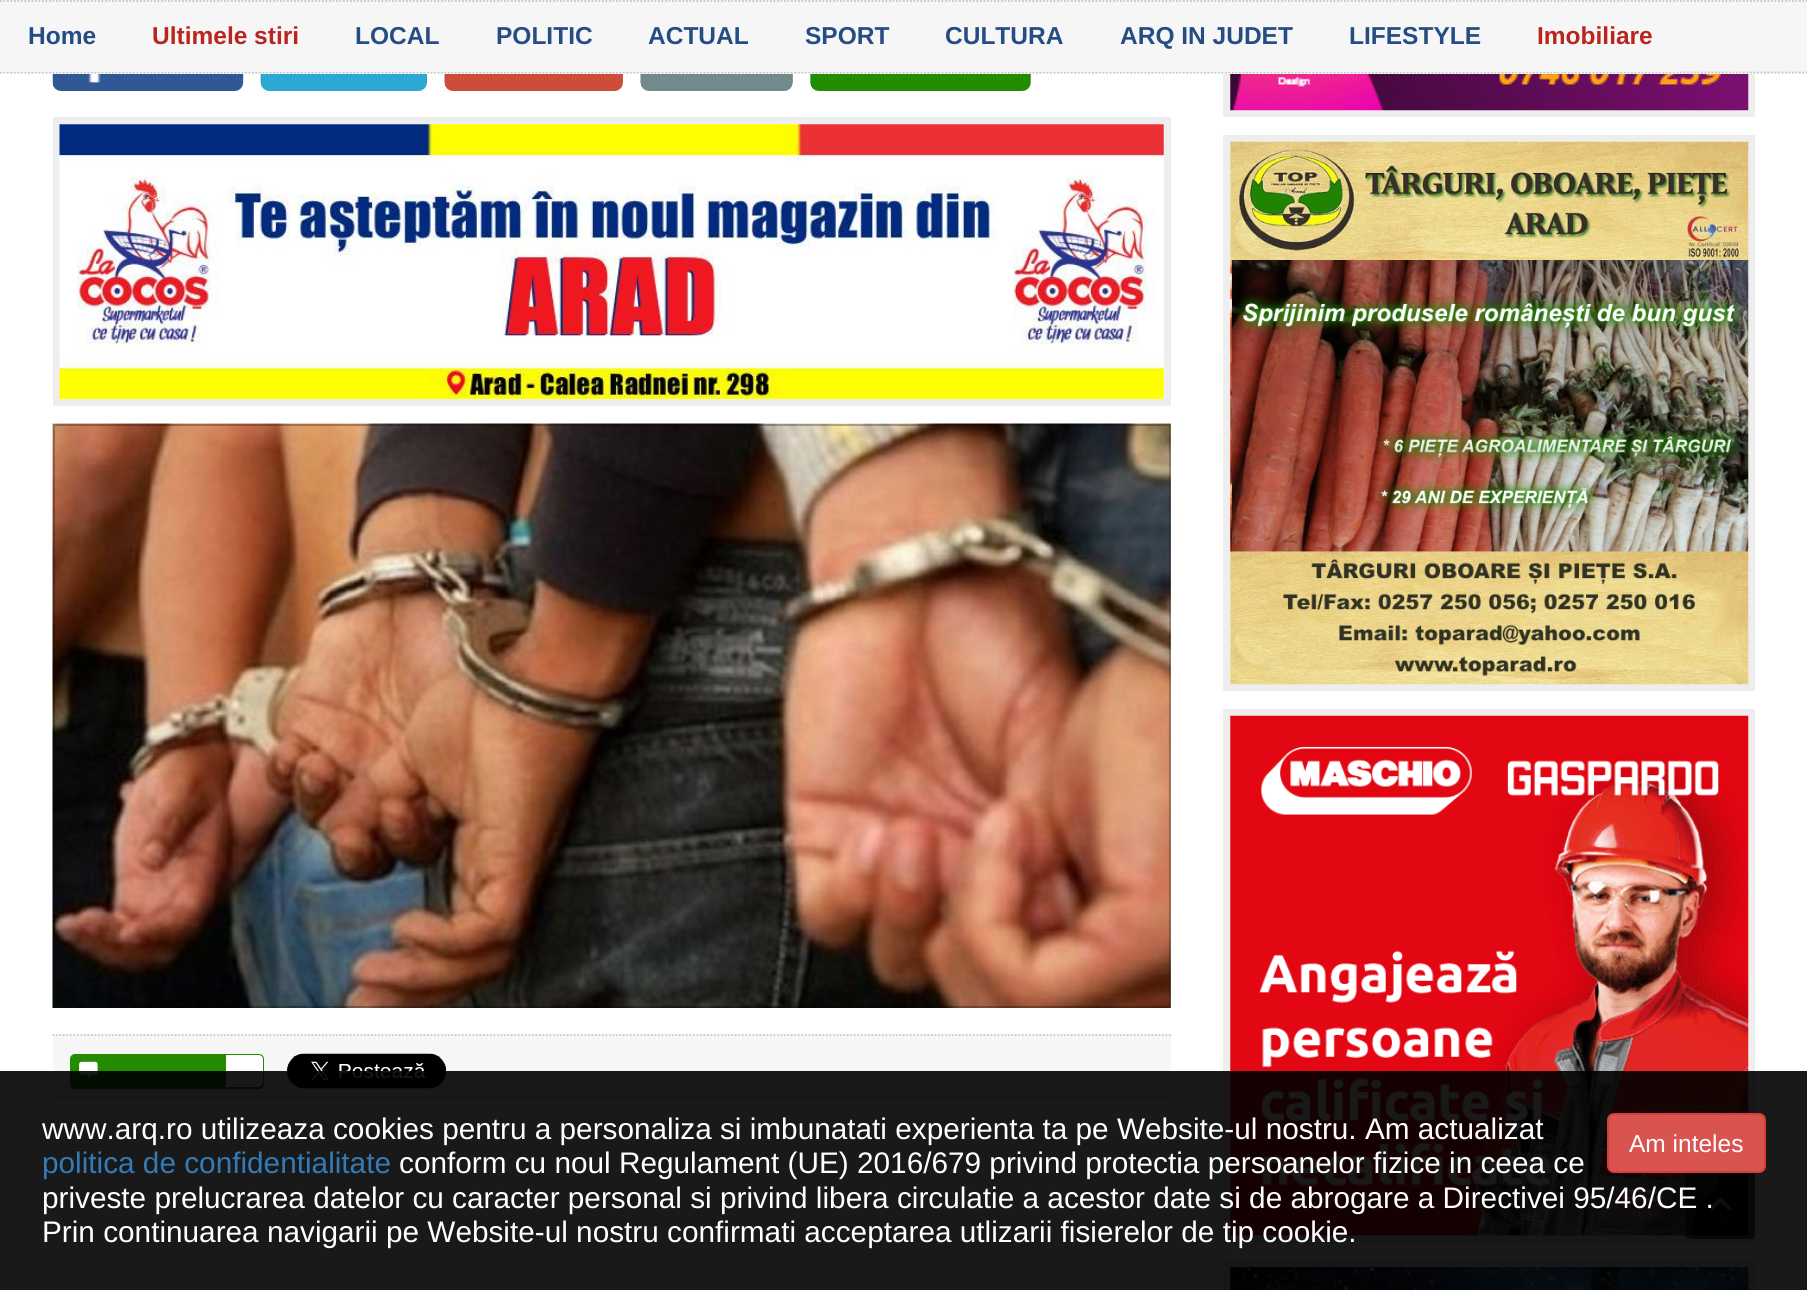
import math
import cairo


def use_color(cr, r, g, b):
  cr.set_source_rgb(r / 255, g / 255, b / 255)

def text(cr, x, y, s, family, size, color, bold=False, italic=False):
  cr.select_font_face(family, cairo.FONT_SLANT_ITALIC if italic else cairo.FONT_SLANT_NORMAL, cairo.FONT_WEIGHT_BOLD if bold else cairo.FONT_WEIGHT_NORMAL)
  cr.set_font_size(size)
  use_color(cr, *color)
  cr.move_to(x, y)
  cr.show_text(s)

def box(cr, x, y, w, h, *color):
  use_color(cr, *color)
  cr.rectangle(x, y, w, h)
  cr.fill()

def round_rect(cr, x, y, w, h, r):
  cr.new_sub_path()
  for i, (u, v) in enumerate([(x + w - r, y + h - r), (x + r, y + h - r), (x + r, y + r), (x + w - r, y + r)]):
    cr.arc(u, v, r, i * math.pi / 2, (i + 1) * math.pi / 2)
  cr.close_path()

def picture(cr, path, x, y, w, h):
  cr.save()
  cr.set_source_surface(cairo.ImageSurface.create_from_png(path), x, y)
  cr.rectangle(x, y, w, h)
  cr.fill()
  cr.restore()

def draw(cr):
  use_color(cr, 255, 255, 255)
  cr.paint()
  picture(cr, "img_01.png", 52, 74, 192, 17)
  picture(cr, "img_02.png", 260, 74, 167, 17)
  picture(cr, "img_03.png", 444, 74, 179, 17)
  picture(cr, "img_04.png", 640, 74, 153, 17)
  picture(cr, "img_05.png", 810, 74, 221, 17)
  cr.rectangle(56.5, 120.5, 1111, 282)
  use_color(cr, 238, 238, 238)
  cr.set_line_width(7)
  cr.stroke()
  picture(cr, "img_06.png", 59, 124, 1105, 275)
  picture(cr, "img_07.png", 52, 423, 1119, 585)
  cr.rectangle(54, 425, 1116, 582)
  cr.set_source_rgba(0, 0, 0, 0.15)
  cr.set_line_width(2)
  cr.stroke()
  cr.rectangle(54, 425, 1116, 582)
  cr.stroke()
  box(cr, 53, 1034, 1118, 65, 246, 246, 246)
  cr.new_path()
  cr.move_to(52.5, 1035)
  cr.line_to(1171, 1035)
  use_color(cr, 204, 204, 204)
  cr.set_line_width(1.8)
  cr.set_dash([1.75, 1.75])
  cr.stroke()
  cr.new_path()
  cr.move_to(52.5, 1098)
  cr.line_to(1171, 1098)
  cr.stroke()
  use_color(cr, 35, 140, 0)
  round_rect(cr, 70, 1054, 194, 35, 5)
  cr.fill()
  picture(cr, "img_08.png", 79, 1061, 19, 17)
  use_color(cr, 255, 255, 255)
  cr.new_path()
  cr.move_to(226, 1055)
  cr.line_to(259, 1055)
  cr.curve_to(261, 1055, 263, 1057, 263, 1059)
  cr.line_to(263, 1083)
  cr.curve_to(263, 1085, 261, 1087, 259, 1087)
  cr.line_to(226, 1087)
  cr.close_path()
  cr.fill()
  picture(cr, "img_09.png", 287, 1053, 160, 36)
  cr.rectangle(1226.5, -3.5, 525, 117)
  use_color(cr, 238, 238, 238)
  cr.set_line_width(7)
  cr.set_dash([])
  cr.stroke()
  picture(cr, "img_10.png", 1230, 74, 519, 37)
  cr.rectangle(1226.5, 138.5, 525, 549)
  cr.stroke()
  picture(cr, "img_11.png", 1230, 141, 519, 544)
  cr.rectangle(1226.5, 712.5, 525, 527)
  cr.stroke()
  picture(cr, "img_12.png", 1230, 715, 519, 521)
  cr.rectangle(1226.5, 1263.5, 525, 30)
  cr.stroke()
  picture(cr, "img_13.png", 1230, 1267, 519, 23)
  box(cr, 0, 0, 1807, 74, 246, 246, 246)
  cr.new_path()
  cr.move_to(0, 1)
  cr.line_to(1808, 1)
  use_color(cr, 197, 197, 197)
  cr.set_line_width(1.8)
  cr.set_dash([1.75, 1.75])
  cr.stroke()
  cr.new_path()
  cr.move_to(0, 72.5)
  cr.line_to(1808, 72.5)
  cr.stroke()
  box(cr, 0, 71, 776, 1, 246, 246, 246)
  box(cr, 777, 71, 139, 1, 246, 246, 246)
  box(cr, 917, 71, 174, 1, 246, 246, 246)
  box(cr, 1092, 71, 587, 1, 246, 246, 246)
  cr.set_source_rgba(0, 0, 0, 0.6)
  round_rect(cr, 1685, 1171, 70, 68, 5)
  cr.fill()
  picture(cr, "img_14.png", 1710, 1198, 21, 12)
  cr.set_source_rgba(0, 0, 0, 0.9)
  cr.rectangle(0, 1071, 1807, 219)
  cr.fill()
  use_color(cr, 217, 83, 79)
  round_rect(cr, 1608, 1114, 157, 58, 6)
  cr.fill_preserve()
  use_color(cr, 212, 63, 58)
  cr.set_line_width(2)
  cr.set_dash([])
  cr.stroke()
  text(cr, 28, 44, "Home", "Liberation Sans", 24.5, (38, 76, 132), bold=True)
  text(cr, 152, 44, "Ultimele stiri", "Liberation Sans", 24.5, (185, 37, 31), bold=True)
  text(cr, 355, 44, "LOCAL", "Liberation Sans", 24.5, (38, 76, 132), bold=True)
  text(cr, 496, 44, "POLITIC", "Liberation Sans", 24.5, (38, 76, 132), bold=True)
  text(cr, 648, 44, "ACTUAL", "Liberation Sans", 24.5, (38, 76, 132), bold=True)
  text(cr, 805, 44, "SPORT", "Liberation Sans", 24.5, (38, 76, 132), bold=True)
  text(cr, 945, 44, "CULTURA", "Liberation Sans", 24.5, (38, 76, 132), bold=True)
  text(cr, 1120, 44, "ARQ IN JUDET", "Liberation Sans", 24.5, (38, 76, 132), bold=True)
  text(cr, 1349, 44, "LIFESTYLE", "Liberation Sans", 24.5, (38, 76, 132), bold=True)
  text(cr, 1537, 44, "Imobiliare", "Liberation Sans", 24.5, (185, 37, 31), bold=True)
  text(cr, 42, 1139, "www.arq.ro utilizeaza cookies pentru a personaliza si imbunatati experienta ta pe Website-ul nostru. Am actualizat", "Liberation Sans", 29.75, (255, 255, 255))
  text(cr, 1629, 1152, "Am inteles", "Liberation Sans", 24.5, (255, 255, 255))
  text(cr, 42, 1173, "politica de confidentialitate", "Liberation Sans", 29.75, (51, 122, 183))
  text(cr, 399, 1173, "conform cu noul Regulament (UE) 2016/679 privind protectia persoanelor fizice in ceea ce", "Liberation Sans", 29.75, (255, 255, 255))
  text(cr, 42, 1208, "priveste prelucrarea datelor cu caracter personal si privind libera circulatie a acestor date si de abrogare a Directivei 95/46/CE .", "Liberation Sans", 29.75, (255, 255, 255))
  text(cr, 42, 1242, "Prin continuarea navigarii pe Website-ul nostru confirmati acceptarea utlizarii fisierelor de tip cookie.", "Liberation Sans", 29.75, (255, 255, 255))


surface = cairo.ImageSurface(cairo.FORMAT_RGB24, 1807, 1290)
cr = cairo.Context(surface)
options = cairo.FontOptions()
options.set_hint_metrics(cairo.HINT_METRICS_OFF)
options.set_hint_style(cairo.HINT_STYLE_NONE)
cr.set_font_options(options)
cr.set_miter_limit(4)
draw(cr)
surface.write_to_png("out.png")
